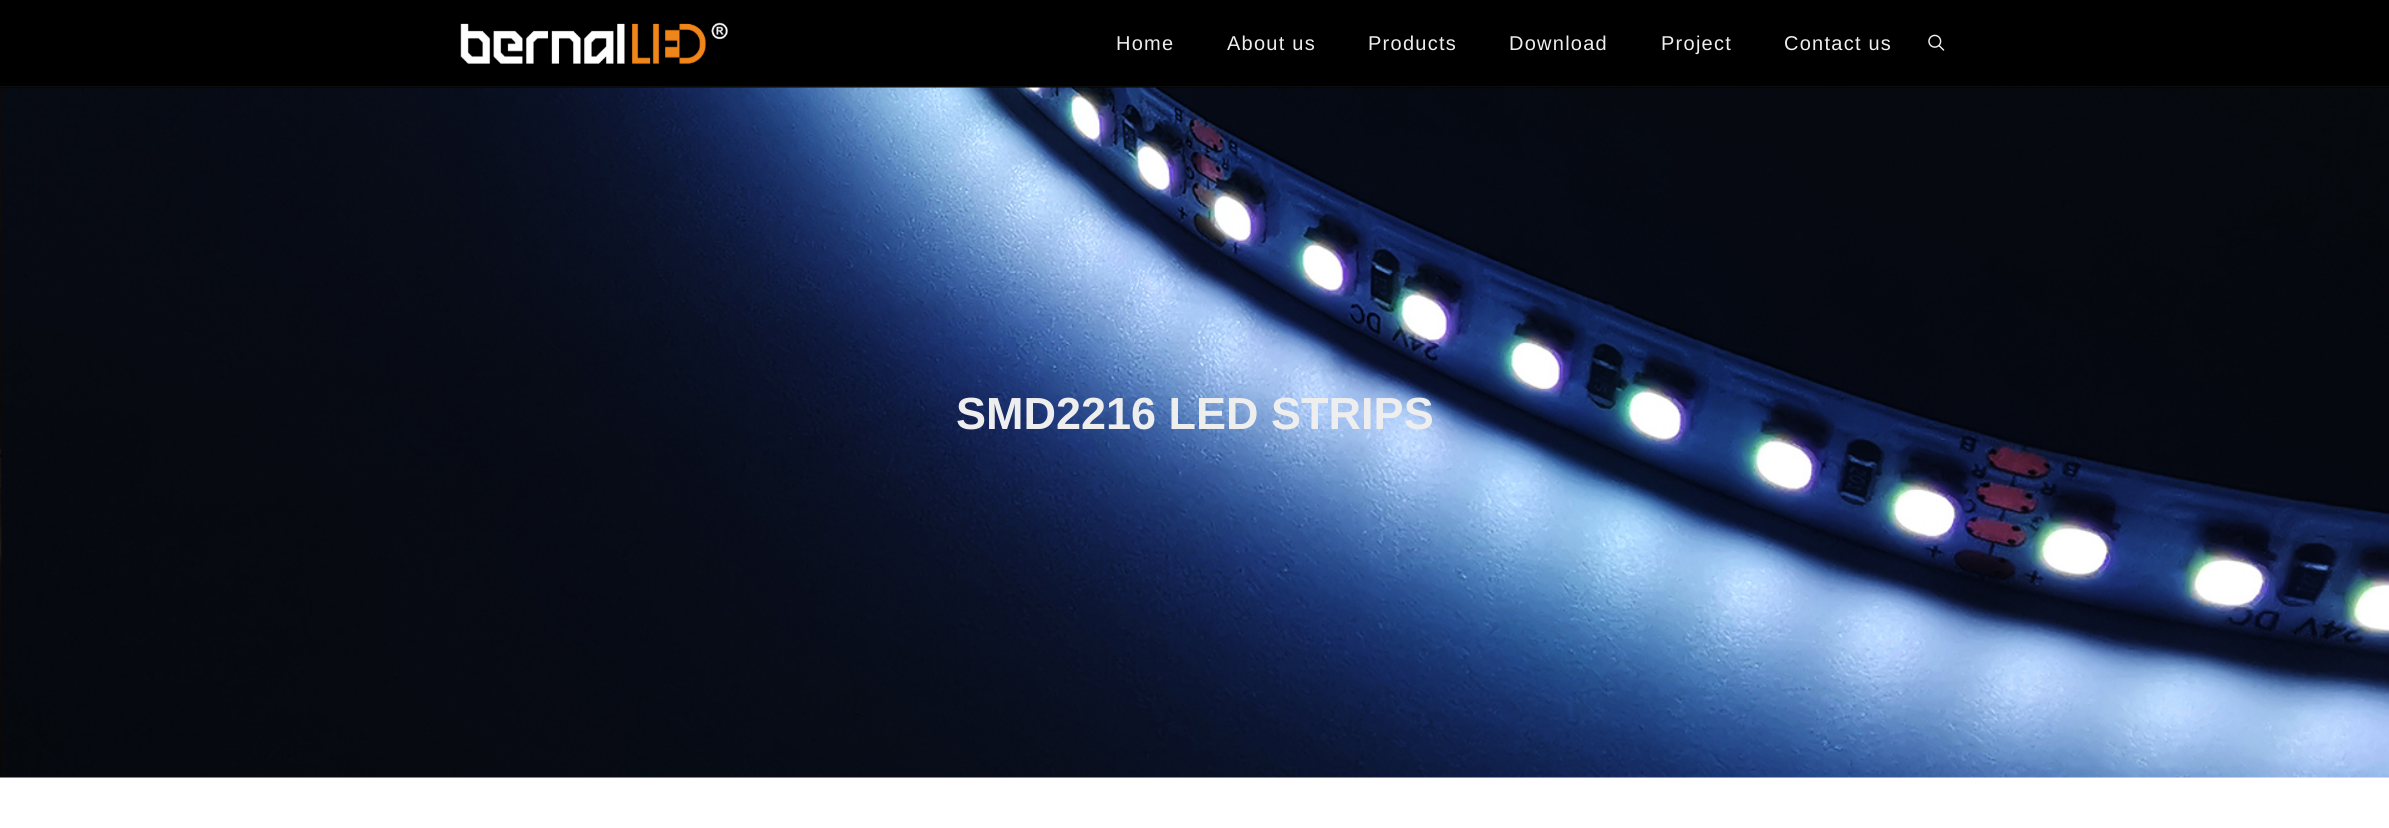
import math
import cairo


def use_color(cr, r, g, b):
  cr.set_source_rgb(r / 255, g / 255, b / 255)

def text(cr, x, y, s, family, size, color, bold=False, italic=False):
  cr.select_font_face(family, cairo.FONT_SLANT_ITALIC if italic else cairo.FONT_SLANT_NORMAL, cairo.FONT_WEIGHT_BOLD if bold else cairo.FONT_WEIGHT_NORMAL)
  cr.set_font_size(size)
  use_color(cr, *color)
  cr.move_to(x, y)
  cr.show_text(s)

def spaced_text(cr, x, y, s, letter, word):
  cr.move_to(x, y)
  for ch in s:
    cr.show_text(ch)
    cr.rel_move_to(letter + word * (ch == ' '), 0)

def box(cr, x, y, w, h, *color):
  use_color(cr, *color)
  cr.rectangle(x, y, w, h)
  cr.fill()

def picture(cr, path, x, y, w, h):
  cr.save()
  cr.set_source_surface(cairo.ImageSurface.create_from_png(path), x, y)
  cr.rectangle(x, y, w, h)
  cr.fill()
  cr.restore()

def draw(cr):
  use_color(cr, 255, 255, 255)
  cr.paint()
  box(cr, 0, 0, 2389, 88, 0, 0, 0)
  box(cr, 0, 86, 2389, 1, 13, 13, 13)
  picture(cr, "img_01.png", 460, 22, 268, 42)
  picture(cr, "img_02.png", 1928, 34, 17, 17)
  picture(cr, "img_03.png", 0, 87, 2389, 691)
  cr.select_font_face("Liberation Sans")
  cr.set_font_size(20)
  use_color(cr, 238, 238, 238)
  spaced_text(cr, 1116, 50, "Home", 1.25, 0)
  spaced_text(cr, 1227, 50, "About us", 1.25, 0)
  spaced_text(cr, 1368, 50, "Products", 1.25, 0)
  spaced_text(cr, 1509, 50, "Download", 1.25, 0)
  spaced_text(cr, 1661, 50, "Project", 1.25, 0)
  spaced_text(cr, 1784, 50, "Contact us", 1.25, 0)
  text(cr, 956, 429, "SMD2216 LED STRIPS", "Liberation Sans", 45, (238, 238, 238), bold=True)


surface = cairo.ImageSurface(cairo.FORMAT_RGB24, 2389, 828)
cr = cairo.Context(surface)
options = cairo.FontOptions()
options.set_hint_metrics(cairo.HINT_METRICS_OFF)
options.set_hint_style(cairo.HINT_STYLE_NONE)
cr.set_font_options(options)
cr.set_miter_limit(4)
draw(cr)
surface.write_to_png("out.png")
